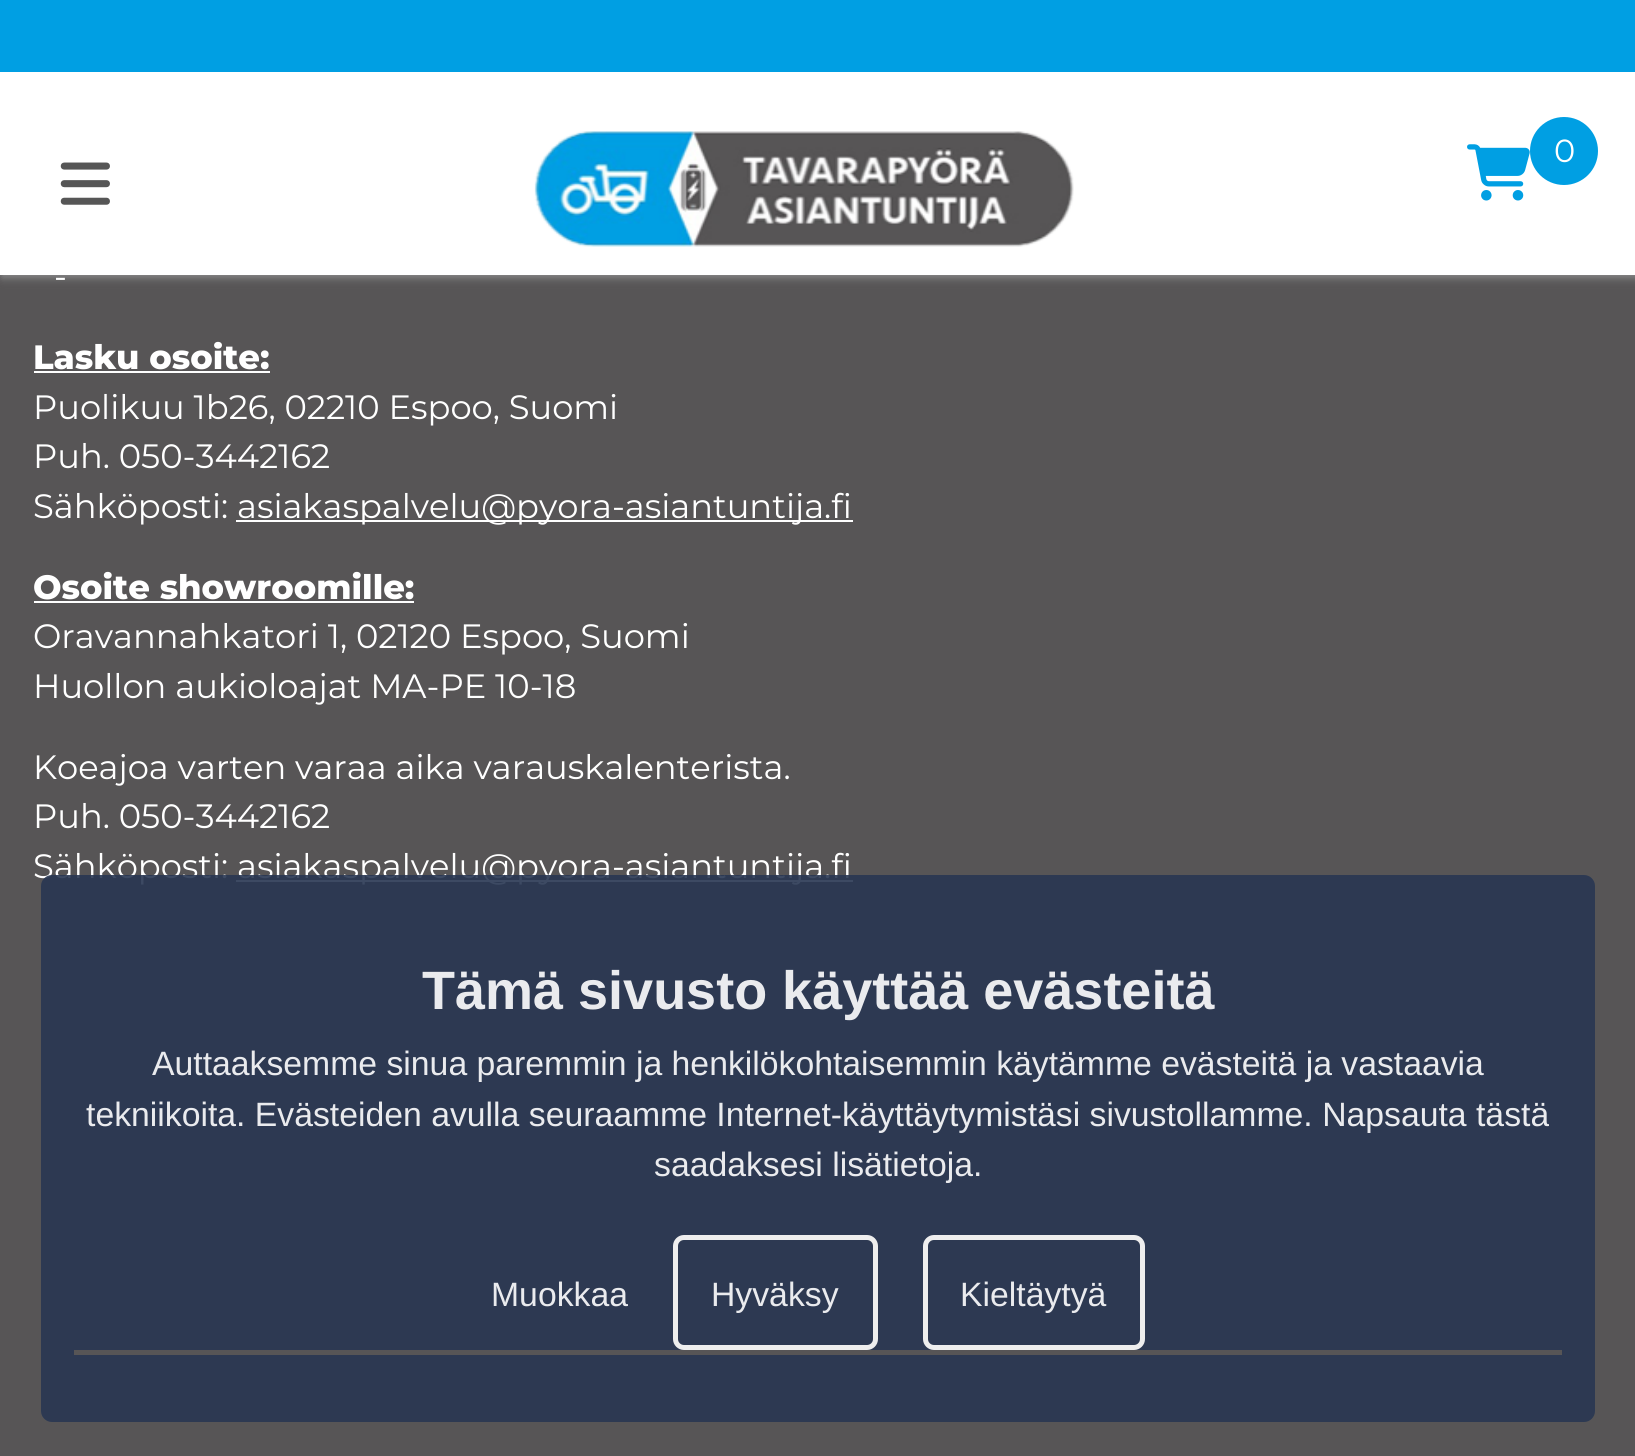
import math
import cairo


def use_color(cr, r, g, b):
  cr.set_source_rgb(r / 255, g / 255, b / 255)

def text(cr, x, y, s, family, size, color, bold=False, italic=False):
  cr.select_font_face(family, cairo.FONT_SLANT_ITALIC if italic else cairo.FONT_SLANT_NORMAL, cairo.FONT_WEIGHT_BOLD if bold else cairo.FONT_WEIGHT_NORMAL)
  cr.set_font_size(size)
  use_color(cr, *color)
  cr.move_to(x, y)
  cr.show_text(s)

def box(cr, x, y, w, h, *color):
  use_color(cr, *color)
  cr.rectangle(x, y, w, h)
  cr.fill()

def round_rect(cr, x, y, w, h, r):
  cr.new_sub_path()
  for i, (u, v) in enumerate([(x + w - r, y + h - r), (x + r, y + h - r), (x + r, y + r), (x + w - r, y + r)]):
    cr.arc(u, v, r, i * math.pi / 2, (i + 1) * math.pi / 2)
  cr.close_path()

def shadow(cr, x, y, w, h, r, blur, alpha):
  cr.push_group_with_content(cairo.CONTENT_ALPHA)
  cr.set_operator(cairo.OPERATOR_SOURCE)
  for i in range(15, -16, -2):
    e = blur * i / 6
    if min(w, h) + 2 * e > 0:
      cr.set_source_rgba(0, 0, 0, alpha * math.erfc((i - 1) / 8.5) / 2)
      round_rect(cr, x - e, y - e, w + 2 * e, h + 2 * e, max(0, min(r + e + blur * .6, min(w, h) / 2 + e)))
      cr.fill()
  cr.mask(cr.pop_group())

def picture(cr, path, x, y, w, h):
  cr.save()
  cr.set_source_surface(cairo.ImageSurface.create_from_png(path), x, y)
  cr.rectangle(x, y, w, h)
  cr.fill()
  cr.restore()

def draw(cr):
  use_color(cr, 87, 85, 86)
  cr.paint()
  use_color(cr, 147, 147, 147)
  shadow(cr, 2, 2, 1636, 275, 0, 4.5, 1)
  box(cr, 0, 0, 1635, 72, 0, 159, 227)
  box(cr, 0, 72, 1635, 203, 255, 255, 255)
  picture(cr, "img_01.png", 534, 131, 540, 116)
  picture(cr, "img_02.png", 1467, 144, 63, 57)
  use_color(cr, 0, 159, 227)
  cr.arc(1564, 151, 34, 0, 2 * math.pi)
  cr.fill()
  picture(cr, "img_03.png", 60, 162, 50, 43)
  box(cr, 34, 371, 236, 2, 255, 255, 255)
  box(cr, 236, 520, 617, 2, 255, 255, 255)
  box(cr, 34, 601, 380, 2, 255, 255, 255)
  box(cr, 236, 880, 617, 2, 255, 255, 255)
  text(cr, 1554, 162, "0", "Montserrat", 32, (255, 255, 255))
  text(cr, 54, 288, "-", "Montserrat", 33.75, (255, 255, 255))
  text(cr, 33, 369, "Lasku osoite:", "Montserrat ExtraBold", 33.75, (255, 255, 255))
  text(cr, 33, 419, "Puolikuu 1b26, 02210 Espoo, Suomi", "Montserrat", 33.75, (255, 255, 255))
  text(cr, 33, 468, "Puh. 050-3442162", "Montserrat", 33.75, (255, 255, 255))
  text(cr, 33, 518, "Sähköposti:", "Montserrat", 33.75, (255, 255, 255))
  text(cr, 237, 518, "asiakaspalvelu@pyora-asiantuntija.fi", "Montserrat", 33.75, (255, 255, 255))
  text(cr, 33, 599, "Osoite showroomille:", "Montserrat ExtraBold", 33.75, (255, 255, 255))
  text(cr, 33, 648, "Oravannahkatori 1, 02120 Espoo, Suomi", "Montserrat", 33.75, (255, 255, 255))
  text(cr, 33, 698, "Huollon aukioloajat MA-PE 10-18", "Montserrat", 33.75, (255, 255, 255))
  text(cr, 33, 779, "Koeajoa varten varaa aika varauskalenterista.", "Montserrat", 33.75, (255, 255, 255))
  text(cr, 33, 828, "Puh. 050-3442162", "Montserrat", 33.75, (255, 255, 255))
  text(cr, 33, 878, "Sähköposti:", "Montserrat", 33.75, (255, 255, 255))
  text(cr, 237, 878, "asiakaspalvelu@pyora-asiantuntija.fi", "Montserrat", 33.75, (255, 255, 255))
  cr.set_source_rgba(0.157, 0.216, 0.322, 0.9)
  round_rect(cr, 41, 875, 1554, 547, 11)
  cr.fill()
  text(cr, 422, 1009, "Tämä sivusto käyttää evästeitä", "Liberation Sans", 54, (234, 235, 238), bold=True)
  text(cr, 152, 1075, "Auttaaksemme sinua paremmin ja henkilökohtaisemmin käytämme evästeitä ja vastaavia", "Liberation Sans", 33.75, (234, 235, 238))
  text(cr, 86, 1126, "tekniikoita. Evästeiden avulla seuraamme Internet-käyttäytymistäsi sivustollamme. Napsauta tästä", "Liberation Sans", 33.75, (234, 235, 238))
  text(cr, 654, 1176, "saadaksesi lisätietoja.", "Liberation Sans", 33.75, (234, 235, 238))
  text(cr, 491, 1306, "Muokkaa", "Liberation Sans", 33.75, (234, 235, 238))
  round_rect(cr, 675.5, 1237.5, 200, 110, 8.5)
  use_color(cr, 238, 238, 238)
  cr.set_line_width(5)
  cr.stroke()
  text(cr, 711, 1306, "Hyväksy", "Liberation Sans", 33.75, (234, 235, 238))
  round_rect(cr, 925.5, 1237.5, 217, 110, 8.5)
  use_color(cr, 238, 238, 238)
  cr.stroke()
  text(cr, 960, 1306, "Kieltäytyä", "Liberation Sans", 33.75, (234, 235, 238))
  box(cr, 74, 1350, 1488, 5, 87, 85, 86)


surface = cairo.ImageSurface(cairo.FORMAT_RGB24, 1635, 1456)
cr = cairo.Context(surface)
options = cairo.FontOptions()
options.set_hint_metrics(cairo.HINT_METRICS_OFF)
options.set_hint_style(cairo.HINT_STYLE_NONE)
cr.set_font_options(options)
cr.set_miter_limit(4)
draw(cr)
surface.write_to_png("out.png")
